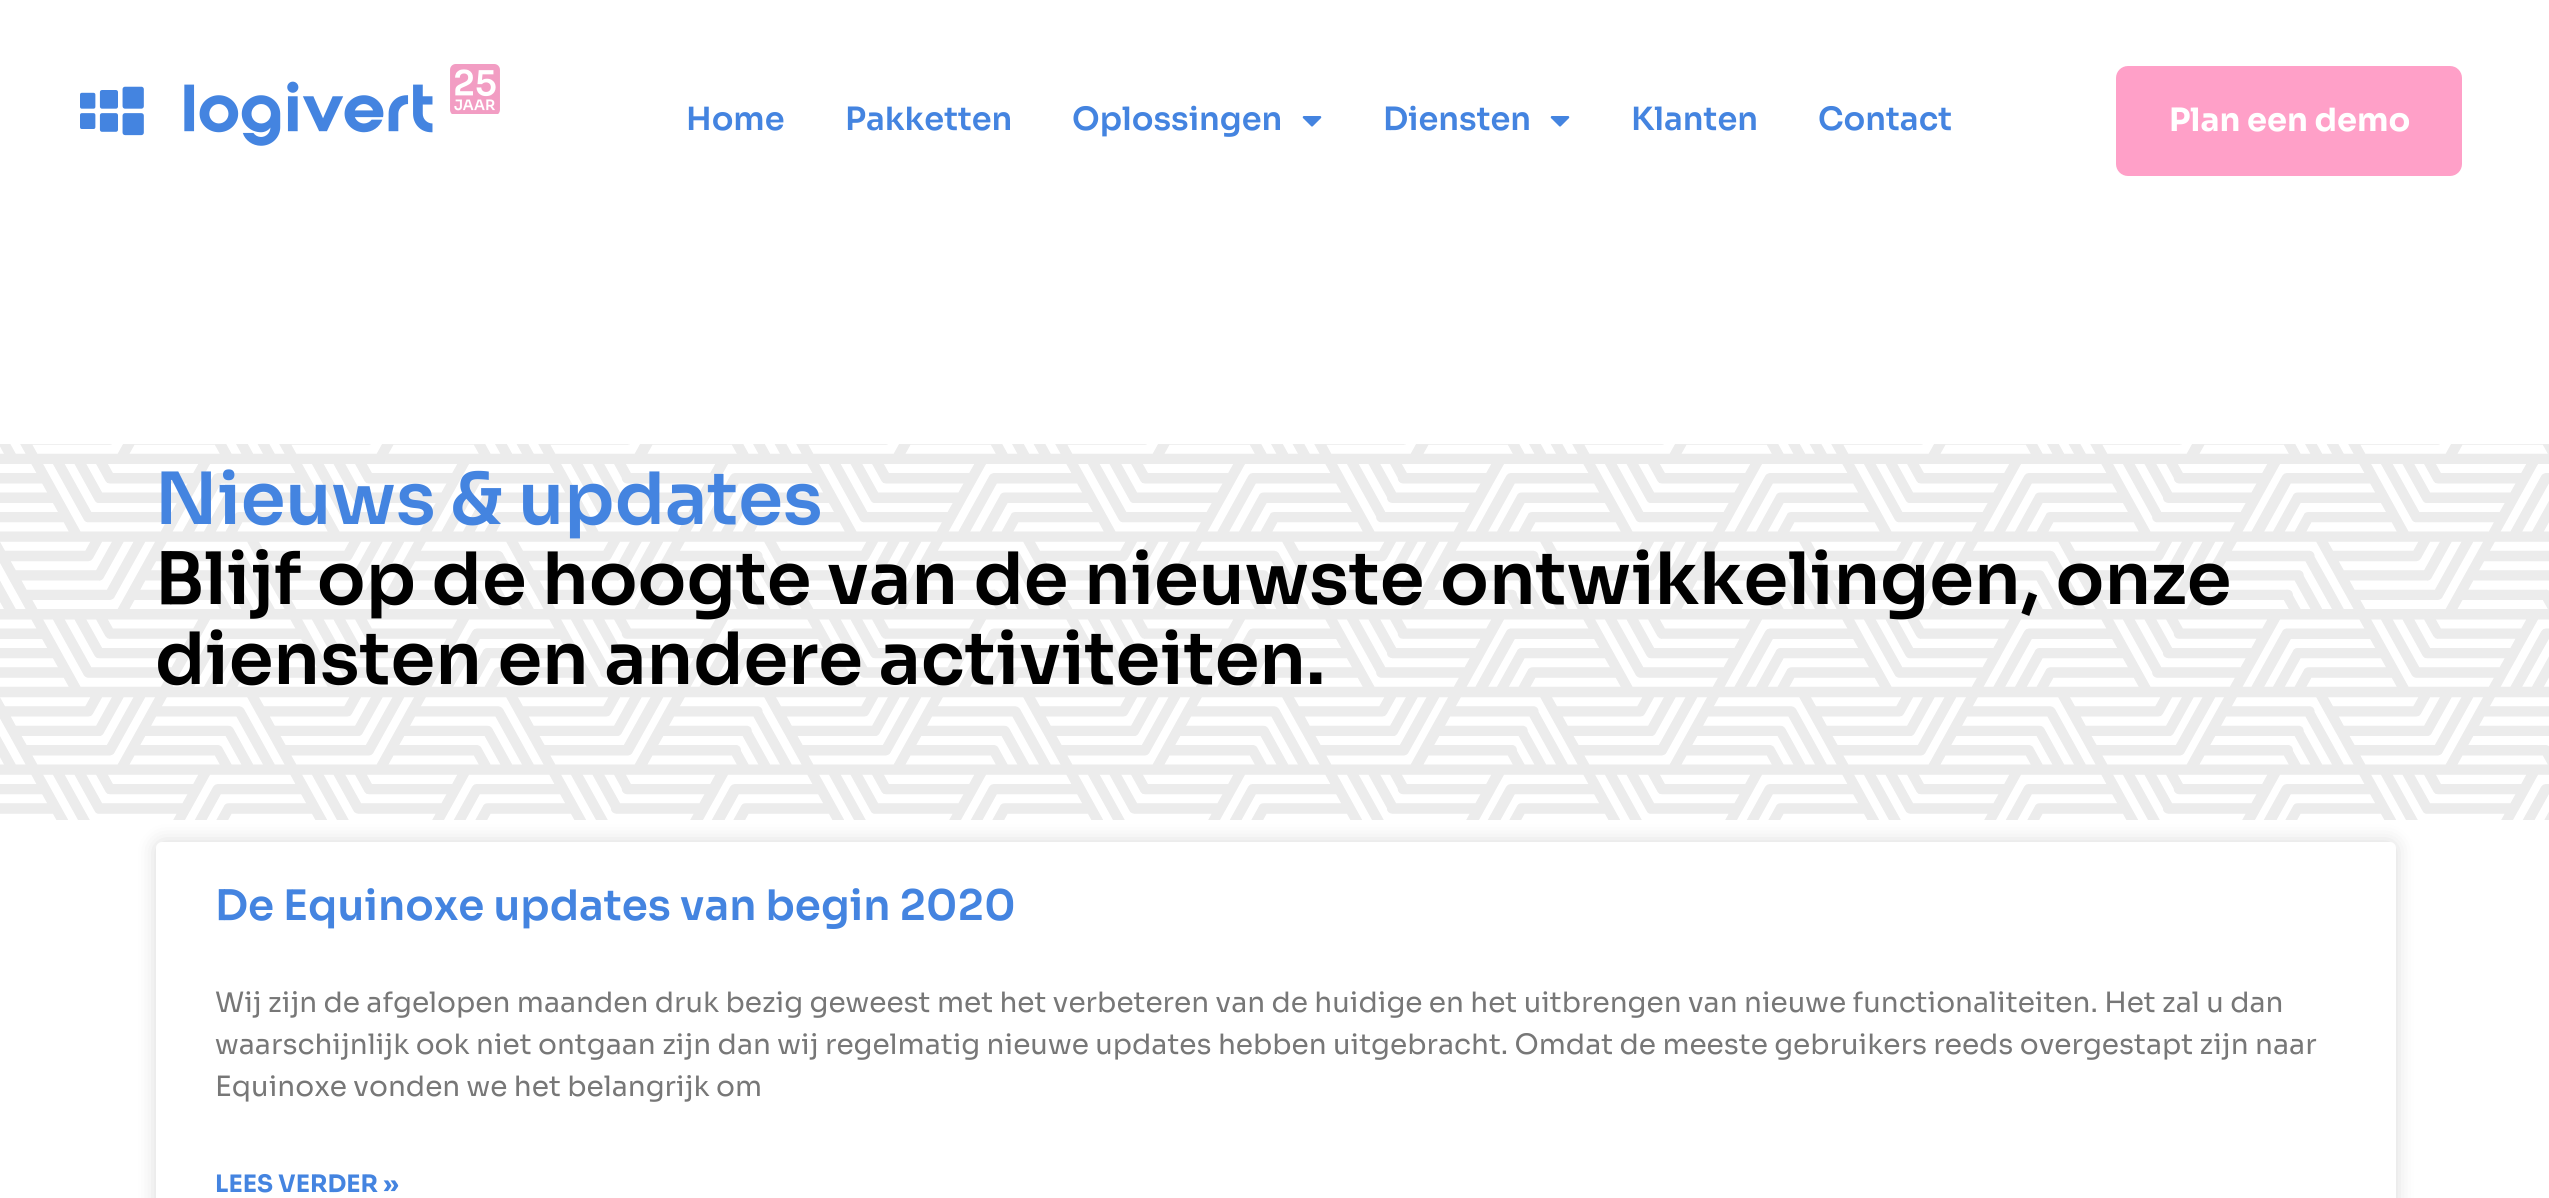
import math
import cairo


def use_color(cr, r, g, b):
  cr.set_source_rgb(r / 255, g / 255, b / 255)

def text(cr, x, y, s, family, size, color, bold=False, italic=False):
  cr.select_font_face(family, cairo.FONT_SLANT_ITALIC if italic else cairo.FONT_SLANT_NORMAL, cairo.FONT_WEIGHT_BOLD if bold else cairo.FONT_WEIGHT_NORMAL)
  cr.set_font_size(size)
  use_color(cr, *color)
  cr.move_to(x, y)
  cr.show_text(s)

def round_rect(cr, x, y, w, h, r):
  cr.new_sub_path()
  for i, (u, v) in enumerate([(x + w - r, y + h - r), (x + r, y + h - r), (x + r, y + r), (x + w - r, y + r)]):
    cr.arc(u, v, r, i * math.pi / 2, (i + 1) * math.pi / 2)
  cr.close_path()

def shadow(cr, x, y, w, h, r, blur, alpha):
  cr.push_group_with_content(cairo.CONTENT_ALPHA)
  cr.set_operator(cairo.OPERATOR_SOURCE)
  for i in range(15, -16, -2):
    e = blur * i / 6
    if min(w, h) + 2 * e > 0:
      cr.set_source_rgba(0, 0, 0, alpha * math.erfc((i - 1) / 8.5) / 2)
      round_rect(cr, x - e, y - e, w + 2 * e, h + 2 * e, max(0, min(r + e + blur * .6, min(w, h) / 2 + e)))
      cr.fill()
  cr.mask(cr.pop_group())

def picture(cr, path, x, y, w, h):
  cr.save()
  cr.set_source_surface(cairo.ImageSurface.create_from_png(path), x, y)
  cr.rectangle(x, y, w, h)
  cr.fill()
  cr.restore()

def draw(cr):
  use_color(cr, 255, 255, 255)
  cr.paint()
  picture(cr, "img_01.png", 80, 81, 353, 65)
  picture(cr, "img_02.png", 450, 64, 50, 50)
  picture(cr, "img_03.png", 1302, 116, 20, 11)
  picture(cr, "img_03.png", 1550, 116, 20, 11)
  use_color(cr, 255, 160, 200)
  round_rect(cr, 2118, 68, 342, 106, 10)
  cr.fill_preserve()
  cr.set_line_width(4)
  cr.stroke()
  picture(cr, "img_04.png", 0, 444, 2549, 376)
  use_color(cr, 0, 0, 0)
  shadow(cr, 156, 842, 2240, 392, 6, 10, 0.15)
  use_color(cr, 255, 255, 255)
  round_rect(cr, 156, 842, 2240, 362, 6)
  cr.fill()
  text(cr, 686, 130, "Home", "Sora SemiBold", 32, (68, 132, 224))
  text(cr, 845, 130, "Pakketten", "Sora SemiBold", 32, (68, 132, 224))
  text(cr, 1072, 130, "Oplossingen", "Sora SemiBold", 32, (68, 132, 224))
  text(cr, 1383, 130, "Diensten", "Sora SemiBold", 32, (68, 132, 224))
  text(cr, 1631, 130, "Klanten", "Sora SemiBold", 32, (68, 132, 224))
  text(cr, 1818, 130, "Contact", "Sora SemiBold", 32, (68, 132, 224))
  text(cr, 2169, 131, "Plan een demo", "Sora", 32, (255, 255, 255), bold=True)
  text(cr, 155, 524, "Nieuws & updates", "Sora SemiBold", 72, (68, 132, 224))
  text(cr, 155, 604, "Blijf op de hoogte van de nieuwste ontwikkelingen, onze", "Sora SemiBold", 72, (0, 0, 0))
  text(cr, 155, 684, "diensten en andere activiteiten.", "Sora SemiBold", 72, (0, 0, 0))
  text(cr, 215, 920, "De Equinoxe updates van begin 2020", "Sora SemiBold", 42, (68, 132, 224))
  text(cr, 215, 1012, "Wij zijn de afgelopen maanden druk bezig geweest met het verbeteren van de huidige en het uitbrengen van nieuwe functionaliteiten. Het zal u dan", "Sora", 28, (119, 119, 119))
  text(cr, 215, 1054, "waarschijnlijk ook niet ontgaan zijn dan wij regelmatig nieuwe updates hebben uitgebracht. Omdat de meeste gebruikers reeds overgestapt zijn naar", "Sora", 28, (119, 119, 119))
  text(cr, 215, 1096, "Equinoxe vonden we het belangrijk om", "Sora", 28, (119, 119, 119))
  text(cr, 215, 1192, "LEES VERDER »", "Sora", 24, (68, 132, 224), bold=True)


surface = cairo.ImageSurface(cairo.FORMAT_RGB24, 2549, 1198)
cr = cairo.Context(surface)
options = cairo.FontOptions()
options.set_hint_metrics(cairo.HINT_METRICS_OFF)
options.set_hint_style(cairo.HINT_STYLE_NONE)
cr.set_font_options(options)
cr.set_miter_limit(4)
draw(cr)
surface.write_to_png("out.png")
